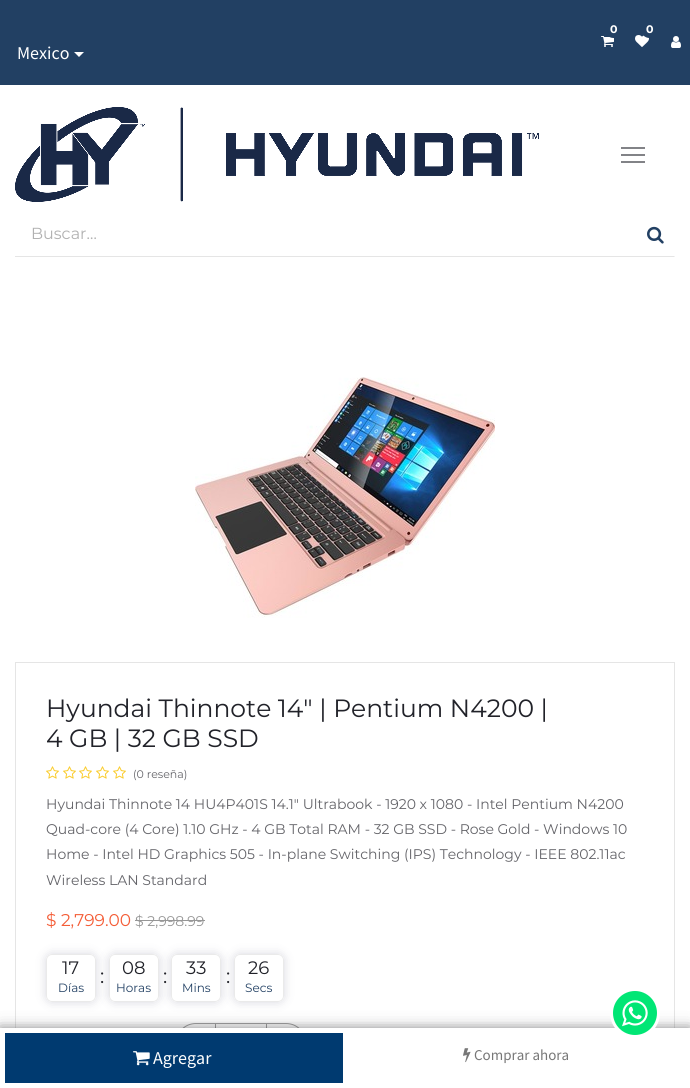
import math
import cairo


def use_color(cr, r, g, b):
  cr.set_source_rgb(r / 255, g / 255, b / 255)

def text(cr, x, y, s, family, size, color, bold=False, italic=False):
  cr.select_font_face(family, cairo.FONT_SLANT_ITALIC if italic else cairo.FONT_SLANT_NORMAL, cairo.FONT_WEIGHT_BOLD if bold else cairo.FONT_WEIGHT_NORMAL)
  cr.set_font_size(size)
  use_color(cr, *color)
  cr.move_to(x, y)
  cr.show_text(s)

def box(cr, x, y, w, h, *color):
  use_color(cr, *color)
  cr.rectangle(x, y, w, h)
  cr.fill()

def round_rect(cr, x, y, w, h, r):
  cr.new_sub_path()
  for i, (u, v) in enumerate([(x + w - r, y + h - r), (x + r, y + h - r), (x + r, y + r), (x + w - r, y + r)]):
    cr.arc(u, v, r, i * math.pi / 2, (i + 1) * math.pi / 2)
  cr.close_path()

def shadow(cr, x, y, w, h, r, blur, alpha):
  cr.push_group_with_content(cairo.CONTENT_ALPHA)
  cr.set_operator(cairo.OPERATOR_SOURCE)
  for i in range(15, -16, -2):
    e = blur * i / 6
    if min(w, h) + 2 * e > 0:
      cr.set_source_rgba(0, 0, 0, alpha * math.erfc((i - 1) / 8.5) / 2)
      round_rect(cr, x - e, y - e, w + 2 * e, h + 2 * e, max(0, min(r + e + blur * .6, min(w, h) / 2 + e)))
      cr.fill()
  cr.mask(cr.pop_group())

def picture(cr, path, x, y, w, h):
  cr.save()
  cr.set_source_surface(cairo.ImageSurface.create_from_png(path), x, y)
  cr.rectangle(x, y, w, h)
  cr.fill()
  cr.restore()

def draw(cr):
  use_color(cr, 255, 255, 255)
  cr.paint()
  box(cr, 0, 0, 690, 85, 34, 64, 99)
  picture(cr, "img_01.png", 601, 36, 13, 11)
  round_rect(cr, 605, 21, 18, 17, 8.5)
  cr.fill()
  picture(cr, "img_02.png", 635, 35, 14, 12)
  cr.arc(649.5, 29.5, 8.5, 0, 2 * math.pi)
  cr.fill()
  picture(cr, "img_03.png", 671, 36, 10, 12)
  use_color(cr, 255, 255, 255)
  cr.new_path()
  cr.move_to(74, 52)
  cr.line_to(84, 52)
  cr.line_to(79, 57)
  cr.close_path()
  cr.fill()
  picture(cr, "img_04.png", 15, 107, 524, 95)
  box(cr, 621, 147, 24, 2, 130, 131, 135)
  box(cr, 621, 154, 24, 2, 130, 131, 135)
  box(cr, 621, 161, 24, 2, 130, 131, 135)
  box(cr, 15, 256, 622, 1, 229, 229, 229)
  cr.new_path()
  cr.move_to(675, 257)
  cr.line_to(636, 257)
  cr.line_to(637, 256)
  cr.line_to(674, 256)
  cr.close_path()
  cr.fill()
  picture(cr, "img_05.png", 647, 226, 17, 18)
  picture(cr, "img_06.png", 195, 377, 300, 241)
  cr.rectangle(15.5, 662.5, 659, 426)
  cr.set_line_width(1)
  cr.stroke()
  picture(cr, "img_07.png", 46, 766, 13, 13)
  picture(cr, "img_07.png", 63, 766, 13, 13)
  picture(cr, "img_07.png", 79, 766, 13, 13)
  picture(cr, "img_07.png", 96, 766, 13, 13)
  picture(cr, "img_07.png", 113, 766, 13, 13)
  box(cr, 135, 920, 70, 1, 150, 150, 150)
  cr.save()
  cr.set_fill_rule(cairo.FILL_RULE_EVEN_ODD)
  cr.new_path()
  cr.move_to(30, 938)
  cr.line_to(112, 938)
  cr.line_to(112, 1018)
  cr.line_to(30, 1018)
  cr.close_path()
  cr.move_to(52, 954)
  cr.line_to(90, 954)
  cr.curve_to(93.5, 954, 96, 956.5, 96, 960)
  cr.line_to(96, 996)
  cr.curve_to(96, 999.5, 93.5, 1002, 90, 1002)
  cr.line_to(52, 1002)
  cr.curve_to(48.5, 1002, 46, 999.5, 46, 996)
  cr.line_to(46, 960)
  cr.curve_to(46, 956.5, 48.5, 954, 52, 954)
  cr.close_path()
  cr.clip()
  use_color(cr, 50, 50, 93)
  shadow(cr, 46, 954, 50, 48, 6, 5, 0.2)
  cr.restore()
  round_rect(cr, 46.5, 954.5, 49, 47, 5.5)
  use_color(cr, 234, 234, 234)
  cr.stroke()
  cr.save()
  cr.set_fill_rule(cairo.FILL_RULE_EVEN_ODD)
  cr.new_path()
  cr.move_to(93, 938)
  cr.line_to(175, 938)
  cr.line_to(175, 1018)
  cr.line_to(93, 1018)
  cr.close_path()
  cr.move_to(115, 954)
  cr.line_to(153, 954)
  cr.curve_to(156.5, 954, 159, 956.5, 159, 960)
  cr.line_to(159, 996)
  cr.curve_to(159, 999.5, 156.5, 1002, 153, 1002)
  cr.line_to(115, 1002)
  cr.curve_to(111.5, 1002, 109, 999.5, 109, 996)
  cr.line_to(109, 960)
  cr.curve_to(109, 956.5, 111.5, 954, 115, 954)
  cr.close_path()
  cr.clip()
  use_color(cr, 50, 50, 93)
  shadow(cr, 109, 954, 50, 48, 6, 5, 0.2)
  cr.restore()
  round_rect(cr, 109.5, 954.5, 49, 47, 5.5)
  cr.stroke()
  cr.save()
  cr.set_fill_rule(cairo.FILL_RULE_EVEN_ODD)
  cr.new_path()
  cr.move_to(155, 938)
  cr.line_to(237, 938)
  cr.line_to(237, 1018)
  cr.line_to(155, 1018)
  cr.close_path()
  cr.move_to(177, 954)
  cr.line_to(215, 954)
  cr.curve_to(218.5, 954, 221, 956.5, 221, 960)
  cr.line_to(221, 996)
  cr.curve_to(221, 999.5, 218.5, 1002, 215, 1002)
  cr.line_to(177, 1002)
  cr.curve_to(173.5, 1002, 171, 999.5, 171, 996)
  cr.line_to(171, 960)
  cr.curve_to(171, 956.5, 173.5, 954, 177, 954)
  cr.close_path()
  cr.clip()
  use_color(cr, 50, 50, 93)
  shadow(cr, 171, 954, 50, 48, 6, 5, 0.2)
  cr.restore()
  round_rect(cr, 171.5, 954.5, 49, 47, 5.5)
  cr.stroke()
  cr.save()
  cr.set_fill_rule(cairo.FILL_RULE_EVEN_ODD)
  cr.new_path()
  cr.move_to(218, 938)
  cr.line_to(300, 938)
  cr.line_to(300, 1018)
  cr.line_to(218, 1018)
  cr.close_path()
  cr.move_to(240, 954)
  cr.line_to(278, 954)
  cr.curve_to(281.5, 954, 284, 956.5, 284, 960)
  cr.line_to(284, 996)
  cr.curve_to(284, 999.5, 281.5, 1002, 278, 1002)
  cr.line_to(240, 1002)
  cr.curve_to(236.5, 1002, 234, 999.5, 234, 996)
  cr.line_to(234, 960)
  cr.curve_to(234, 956.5, 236.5, 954, 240, 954)
  cr.close_path()
  cr.clip()
  use_color(cr, 50, 50, 93)
  shadow(cr, 234, 954, 50, 48, 6, 5, 0.2)
  cr.restore()
  round_rect(cr, 234.5, 954.5, 49, 47, 5.5)
  cr.stroke()
  cr.new_path()
  cr.move_to(196, 1023.5)
  cr.line_to(215.5, 1023.5)
  cr.line_to(215.5, 1062.5)
  cr.line_to(196, 1062.5)
  cr.curve_to(185, 1062.5, 176.5, 1054, 176.5, 1043)
  cr.curve_to(176.5, 1032, 185, 1023.5, 196, 1023.5)
  cr.close_path()
  use_color(cr, 160, 160, 160)
  cr.stroke()
  box(cr, 216, 1023, 50, 1, 160, 160, 160)
  cr.new_path()
  cr.move_to(266.5, 1023.5)
  cr.line_to(286, 1023.5)
  cr.curve_to(297, 1023.5, 305.5, 1032, 305.5, 1043)
  cr.curve_to(305.5, 1054, 297, 1062.5, 286, 1062.5)
  cr.line_to(266.5, 1062.5)
  cr.close_path()
  cr.stroke()
  use_color(cr, 35, 35, 41)
  shadow(cr, 0, 1028, 690, 60, 0, 8, 0.36)
  box(cr, 0, 1028, 690, 60, 255, 255, 255)
  cr.save()
  cr.rectangle(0, 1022, 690, 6)
  cr.clip()
  use_color(cr, 0, 0, 0)
  shadow(cr, 0, 1028, 690, 60, 0, 5, 0.2)
  cr.restore()
  box(cr, 5, 1033, 338, 50, 0, 58, 112)
  picture(cr, "img_08.png", 133, 1051, 17, 15)
  picture(cr, "img_09.png", 463, 1048, 8, 15)
  use_color(cr, 1, 230, 117)
  cr.arc(635, 1013, 23.5, 0, 2 * math.pi)
  cr.fill_preserve()
  use_color(cr, 255, 255, 255)
  cr.set_line_width(3)
  cr.stroke()
  picture(cr, "img_10.png", 622, 1000, 26, 27)
  text(cr, 610, 33, "0", "Montserrat", 11, (255, 255, 255), bold=True)
  text(cr, 646, 33, "0", "Montserrat", 11, (255, 255, 255), bold=True)
  text(cr, 17, 59, "Mexico", "Source Sans Pro", 18, (255, 255, 255))
  text(cr, 31, 239, "Buscar…", "Montserrat", 16, (177, 177, 177))
  text(cr, 46, 717, "Hyundai Thinnote 14\" | Pentium N4200 |", "Montserrat", 25, (33, 34, 41))
  text(cr, 46, 747, "4 GB | 32 GB SSD", "Montserrat", 25, (33, 34, 41))
  text(cr, 133, 778, "(0 reseña)", "Montserrat", 11, (100, 100, 105))
  text(cr, 46, 809, "Hyundai Thinnote 14 HU4P401S 14.1\" Ultrabook - 1920 x 1080 - Intel Pentium N4200", "Montserrat", 14, (100, 100, 105))
  text(cr, 46, 834, "Quad-core (4 Core) 1.10 GHz - 4 GB Total RAM - 32 GB SSD - Rose Gold - Windows 10", "Montserrat", 14, (100, 100, 105))
  text(cr, 46, 859, "Home - Intel HD Graphics 505 - In-plane Switching (IPS) Technology - IEEE 802.11ac", "Montserrat", 14, (100, 100, 105))
  text(cr, 46, 885, "Wireless LAN Standard", "Montserrat", 14, (100, 100, 105))
  text(cr, 46, 926, "$ 2,799.00", "Montserrat", 17, (244, 93, 55))
  text(cr, 135, 926, "$ 2,998.99", "Montserrat", 14, (150, 150, 150))
  text(cr, 62, 974, "17", "Montserrat", 18, (33, 34, 41))
  text(cr, 58, 992, "Días", "Montserrat", 12, (34, 64, 99))
  text(cr, 100, 983, ":", "Montserrat", 20, (33, 34, 41))
  text(cr, 122, 974, "08", "Montserrat", 18, (33, 34, 41))
  text(cr, 116, 992, "Horas", "Montserrat", 12, (34, 64, 99))
  text(cr, 163, 983, ":", "Montserrat", 20, (33, 34, 41))
  text(cr, 186, 974, "33", "Montserrat", 18, (33, 34, 41))
  text(cr, 182, 992, "Mins", "Montserrat", 12, (34, 64, 99))
  text(cr, 226, 983, ":", "Montserrat", 20, (33, 34, 41))
  text(cr, 248, 974, "26", "Montserrat", 18, (33, 34, 41))
  text(cr, 245, 992, "Secs", "Montserrat", 12, (34, 64, 99))
  text(cr, 153, 1064, "Agregar", "Source Sans Pro", 18, (255, 255, 255))
  text(cr, 474, 1060, "Comprar ahora", "Source Sans Pro", 15, (119, 119, 119))


surface = cairo.ImageSurface(cairo.FORMAT_RGB24, 690, 1088)
cr = cairo.Context(surface)
options = cairo.FontOptions()
options.set_hint_metrics(cairo.HINT_METRICS_OFF)
options.set_hint_style(cairo.HINT_STYLE_NONE)
cr.set_font_options(options)
cr.set_miter_limit(4)
draw(cr)
surface.write_to_png("out.png")
